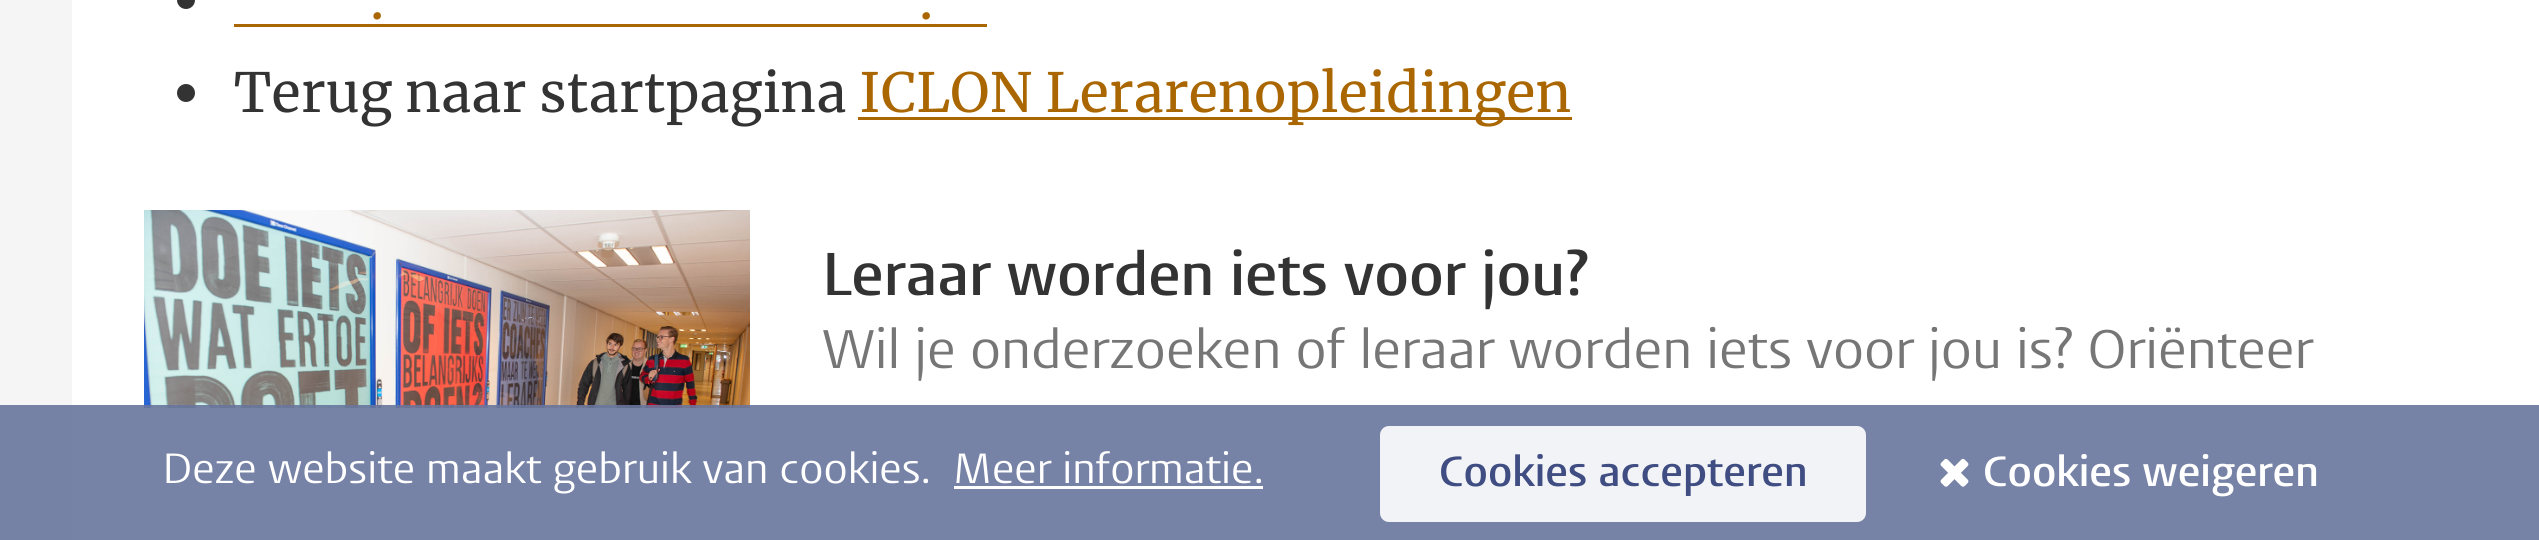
import math
import cairo


def use_color(cr, r, g, b):
  cr.set_source_rgb(r / 255, g / 255, b / 255)

def text(cr, x, y, s, family, size, color, bold=False, italic=False):
  cr.select_font_face(family, cairo.FONT_SLANT_ITALIC if italic else cairo.FONT_SLANT_NORMAL, cairo.FONT_WEIGHT_BOLD if bold else cairo.FONT_WEIGHT_NORMAL)
  cr.set_font_size(size)
  use_color(cr, *color)
  cr.move_to(x, y)
  cr.show_text(s)

def box(cr, x, y, w, h, *color):
  use_color(cr, *color)
  cr.rectangle(x, y, w, h)
  cr.fill()

def round_rect(cr, x, y, w, h, r):
  cr.new_sub_path()
  for i, (u, v) in enumerate([(x + w - r, y + h - r), (x + r, y + h - r), (x + r, y + r), (x + w - r, y + r)]):
    cr.arc(u, v, r, i * math.pi / 2, (i + 1) * math.pi / 2)
  cr.close_path()

def picture(cr, path, x, y, w, h):
  cr.save()
  cr.set_source_surface(cairo.ImageSurface.create_from_png(path), x, y)
  cr.rectangle(x, y, w, h)
  cr.fill()
  cr.restore()

def draw(cr):
  use_color(cr, 255, 255, 255)
  cr.paint()
  gradient = cairo.LinearGradient(0, -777, 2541, -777)
  gradient.add_color_stop_rgba(0, 0.961, 0.961, 0.961, 1)
  gradient.add_color_stop_rgba(0.15, 0.961, 0.961, 0.961, 1)
  gradient.add_color_stop_rgba(0.65, 1, 1, 1, 1)
  cr.set_source(gradient)
  cr.rectangle(0, 0, 1334, 540)
  cr.fill()
  box(cr, 72, 0, 1262, 540, 255, 255, 255)
  use_color(cr, 51, 51, 51)
  cr.arc(186, 0, 9, 0, 2 * math.pi)
  cr.fill()
  box(cr, 234, 24, 753, 3, 170, 102, 0)
  use_color(cr, 51, 51, 51)
  cr.arc(186, 93, 9, 0, 2 * math.pi)
  cr.fill()
  box(cr, 858, 117, 714, 3, 170, 102, 0)
  picture(cr, "img_01.png", 144, 210, 606, 198)
  cr.set_source_rgba(0.408, 0.463, 0.612, 0.9)
  cr.rectangle(0, 405, 2539, 135)
  cr.fill()
  box(cr, 954, 486, 309, 3, 255, 255, 255)
  cr.set_source_rgba(1, 1, 1, 0.9)
  round_rect(cr, 1380, 426, 486, 96, 9)
  cr.fill()
  picture(cr, "img_02.png", 1940, 458, 29, 29)
  text(cr, 370, 19, ".", "Merriweather", 54, (170, 102, 0))
  text(cr, 919, 19, ".", "Merriweather", 54, (170, 102, 0))
  text(cr, 234, 112, "Terug naar startpagina", "Merriweather", 54, (51, 51, 51))
  text(cr, 859, 112, "ICLON Lerarenopleidingen", "Merriweather", 54, (170, 102, 0))
  text(cr, 822, 295, "Leraar worden iets voor jou?", "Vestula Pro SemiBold", 60, (51, 51, 51))
  text(cr, 822, 368, "Wil je onderzoeken of leraar worden iets voor jou is? Oriënteer", "Vestula Pro", 54, (118, 118, 118))
  text(cr, 162, 483, "Deze website maakt gebruik van cookies.", "Vestula Pro", 42, (255, 255, 255))
  text(cr, 953, 483, "Meer informatie.", "Vestula Pro", 42, (255, 255, 255))
  text(cr, 1439, 486, "Cookies accepteren", "Vestula Pro SemiBold", 42, (64, 77, 130))
  text(cr, 1983, 486, "Cookies weigeren", "Vestula Pro SemiBold", 42, (255, 255, 255))


surface = cairo.ImageSurface(cairo.FORMAT_RGB24, 2539, 540)
cr = cairo.Context(surface)
options = cairo.FontOptions()
options.set_hint_metrics(cairo.HINT_METRICS_OFF)
options.set_hint_style(cairo.HINT_STYLE_NONE)
cr.set_font_options(options)
cr.set_miter_limit(4)
draw(cr)
surface.write_to_png("out.png")
